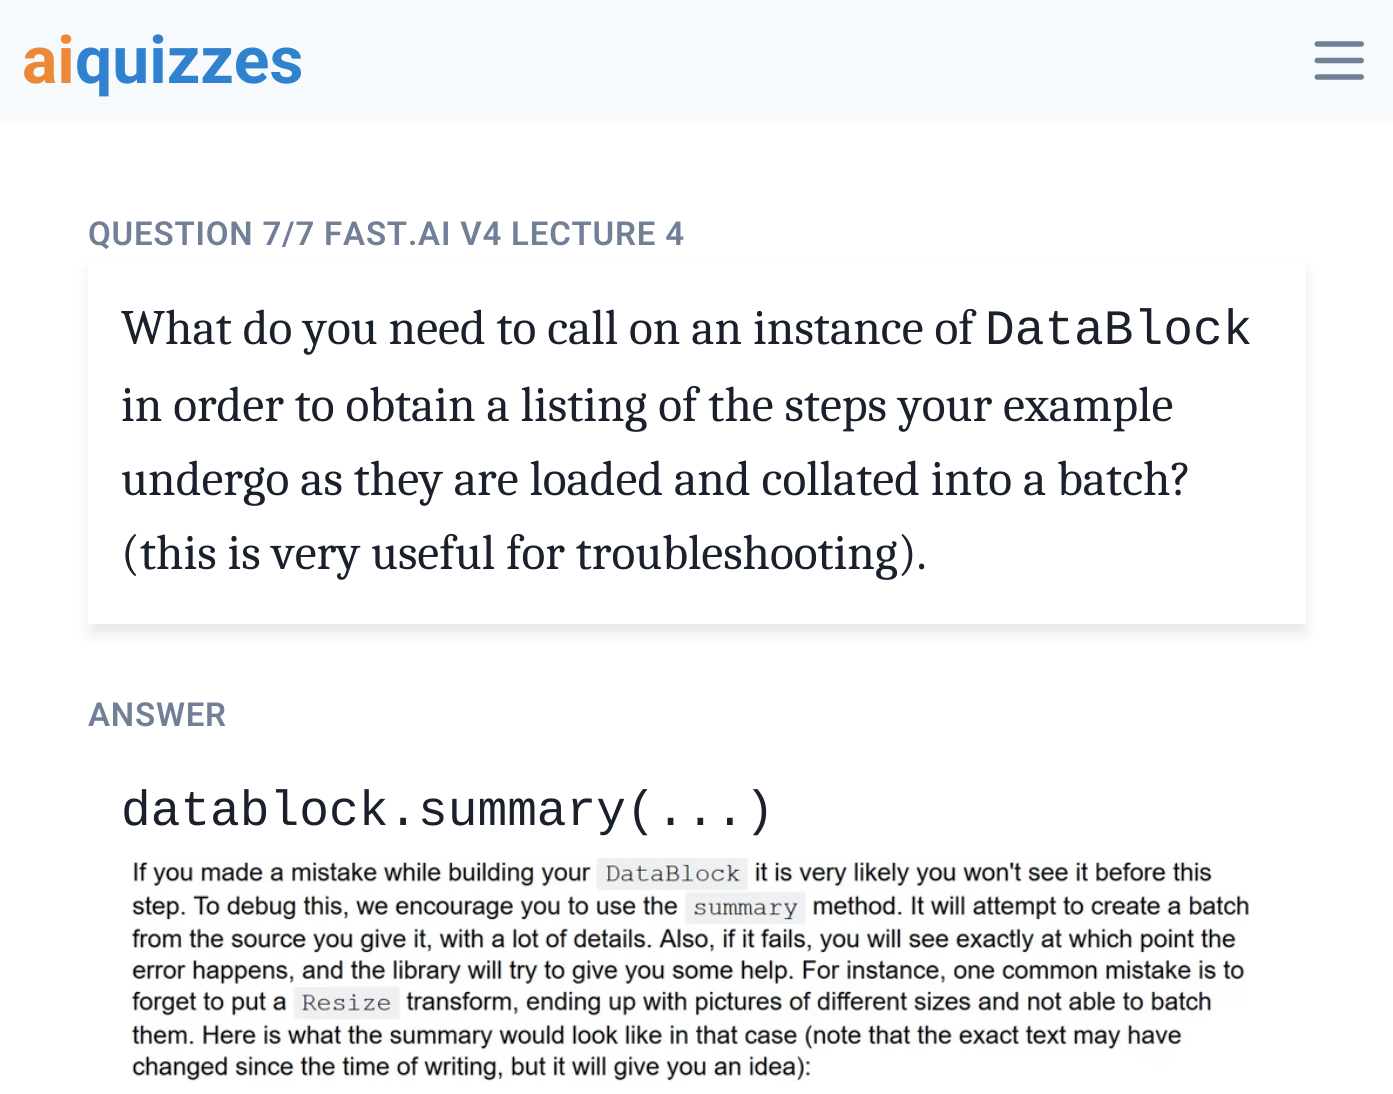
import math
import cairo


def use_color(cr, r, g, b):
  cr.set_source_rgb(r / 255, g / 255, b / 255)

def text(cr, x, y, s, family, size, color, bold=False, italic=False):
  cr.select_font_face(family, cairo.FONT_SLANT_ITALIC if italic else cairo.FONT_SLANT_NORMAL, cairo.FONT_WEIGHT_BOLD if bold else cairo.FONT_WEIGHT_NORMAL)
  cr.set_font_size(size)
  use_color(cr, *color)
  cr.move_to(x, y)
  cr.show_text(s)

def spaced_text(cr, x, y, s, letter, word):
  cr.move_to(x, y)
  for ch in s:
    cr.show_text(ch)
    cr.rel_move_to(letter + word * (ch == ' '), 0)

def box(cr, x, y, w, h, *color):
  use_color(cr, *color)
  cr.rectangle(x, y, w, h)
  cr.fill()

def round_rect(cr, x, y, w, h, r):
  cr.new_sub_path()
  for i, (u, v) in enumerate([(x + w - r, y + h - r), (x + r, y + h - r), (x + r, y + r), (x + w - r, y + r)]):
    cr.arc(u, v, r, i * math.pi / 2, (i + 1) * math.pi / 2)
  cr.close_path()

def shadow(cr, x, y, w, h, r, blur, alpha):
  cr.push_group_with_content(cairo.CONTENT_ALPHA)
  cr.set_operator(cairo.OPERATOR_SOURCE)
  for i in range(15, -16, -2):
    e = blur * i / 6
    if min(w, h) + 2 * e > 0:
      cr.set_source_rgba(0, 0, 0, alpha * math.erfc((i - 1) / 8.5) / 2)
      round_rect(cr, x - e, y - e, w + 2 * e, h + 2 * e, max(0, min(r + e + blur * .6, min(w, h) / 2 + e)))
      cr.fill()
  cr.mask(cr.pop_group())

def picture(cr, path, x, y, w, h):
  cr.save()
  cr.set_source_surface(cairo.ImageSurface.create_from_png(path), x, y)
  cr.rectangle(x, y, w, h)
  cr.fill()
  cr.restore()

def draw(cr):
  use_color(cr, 255, 255, 255)
  cr.paint()
  box(cr, 0, 0, 1393, 121, 247, 250, 252)
  picture(cr, "img_01.png", 1314, 41, 50, 39)
  cr.save()
  cr.set_fill_rule(cairo.FILL_RULE_EVEN_ODD)
  cr.new_path()
  cr.move_to(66, 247)
  cr.line_to(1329, 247)
  cr.line_to(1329, 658)
  cr.line_to(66, 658)
  cr.close_path()
  cr.move_to(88, 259)
  cr.line_to(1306, 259)
  cr.line_to(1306, 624)
  cr.line_to(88, 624)
  cr.close_path()
  cr.clip()
  use_color(cr, 0, 0, 0)
  shadow(cr, 91, 272, 1213, 361, 0, 8, 0.1)
  cr.restore()
  picture(cr, "img_02.png", 129, 858, 1123, 225)
  text(cr, 22, 83, "ai", "Roboto", 66, (237, 137, 54), bold=True)
  text(cr, 75, 83, "quizzes", "Roboto", 66, (49, 130, 206), bold=True)
  cr.select_font_face("Roboto SemiBold")
  cr.set_font_size(33)
  use_color(cr, 113, 128, 150)
  spaced_text(cr, 88, 245, "QUESTION 7/7 FAST.AI V4 LECTURE 4", 0.8, 0)
  text(cr, 121, 344, "What do you need to call on an instance of", "Caladea", 49.5, (26, 32, 44))
  text(cr, 985, 344, "DataBlock", "Liberation Mono", 49.5, (26, 32, 44))
  text(cr, 121, 421, "in order to obtain a listing of the steps your example", "Caladea", 49.5, (26, 32, 44))
  text(cr, 121, 495, "undergo as they are loaded and collated into a batch?", "Caladea", 49.5, (26, 32, 44))
  text(cr, 121, 569, "(this is very useful for troubleshooting).", "Caladea", 49.5, (26, 32, 44))
  cr.select_font_face("Roboto SemiBold")
  cr.set_font_size(33)
  use_color(cr, 113, 128, 150)
  spaced_text(cr, 88, 726, "ANSWER", 0.8, 0)
  text(cr, 121, 825, "datablock.summary(...)", "Liberation Mono", 49.5, (26, 32, 44))


surface = cairo.ImageSurface(cairo.FORMAT_RGB24, 1393, 1094)
cr = cairo.Context(surface)
options = cairo.FontOptions()
options.set_hint_metrics(cairo.HINT_METRICS_OFF)
options.set_hint_style(cairo.HINT_STYLE_NONE)
cr.set_font_options(options)
cr.set_miter_limit(4)
draw(cr)
surface.write_to_png("out.png")
